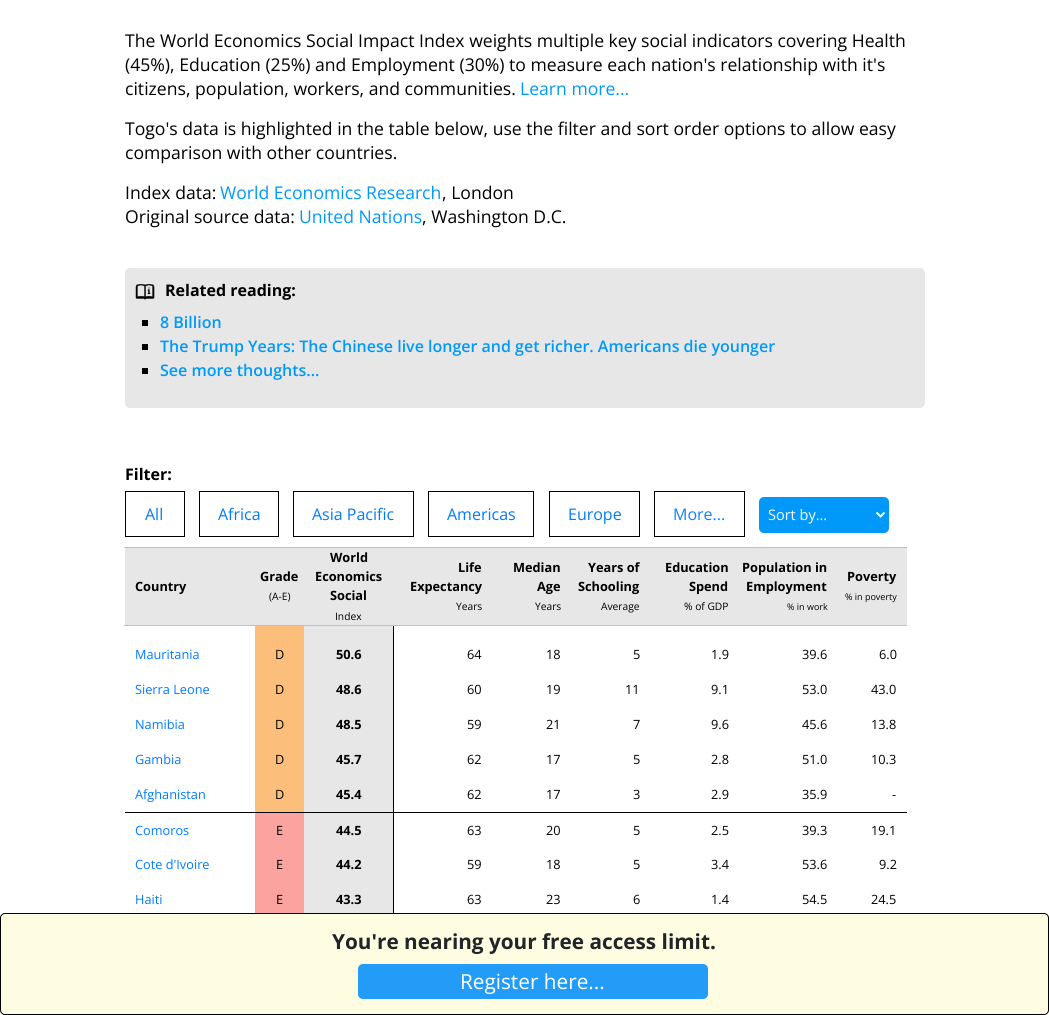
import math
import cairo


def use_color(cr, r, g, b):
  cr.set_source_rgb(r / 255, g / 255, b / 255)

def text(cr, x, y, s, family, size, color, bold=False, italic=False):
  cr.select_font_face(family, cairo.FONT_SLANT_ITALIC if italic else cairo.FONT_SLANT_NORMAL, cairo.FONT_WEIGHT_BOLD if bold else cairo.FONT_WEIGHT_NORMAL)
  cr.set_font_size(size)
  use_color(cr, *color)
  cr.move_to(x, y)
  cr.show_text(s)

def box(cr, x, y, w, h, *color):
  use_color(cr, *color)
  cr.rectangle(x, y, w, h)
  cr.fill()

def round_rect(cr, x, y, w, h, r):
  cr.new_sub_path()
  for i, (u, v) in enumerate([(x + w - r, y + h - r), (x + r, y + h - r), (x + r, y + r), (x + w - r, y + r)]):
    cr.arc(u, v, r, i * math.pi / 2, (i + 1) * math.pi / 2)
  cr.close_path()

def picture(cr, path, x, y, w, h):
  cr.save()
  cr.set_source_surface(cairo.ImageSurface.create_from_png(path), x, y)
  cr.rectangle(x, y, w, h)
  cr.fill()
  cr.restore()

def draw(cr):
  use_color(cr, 255, 255, 255)
  cr.paint()
  use_color(cr, 231, 231, 231)
  round_rect(cr, 125, 268, 800, 140, 5)
  cr.fill()
  picture(cr, "img_01.png", 135, 284, 20, 16)
  box(cr, 142, 320, 6, 6, 0, 0, 0)
  box(cr, 142, 344, 6, 6, 0, 0, 0)
  box(cr, 142, 368, 6, 6, 0, 0, 0)
  cr.rectangle(125.5, 491.5, 59, 45)
  cr.set_line_width(1)
  cr.stroke()
  cr.rectangle(199.5, 491.5, 79, 45)
  cr.stroke()
  cr.rectangle(293.5, 491.5, 120, 45)
  cr.stroke()
  cr.rectangle(428.5, 491.5, 105, 45)
  cr.stroke()
  cr.rectangle(549.5, 491.5, 90, 45)
  cr.stroke()
  cr.rectangle(654.5, 491.5, 90, 45)
  cr.stroke()
  use_color(cr, 0, 153, 250)
  round_rect(cr, 759, 497, 130, 36, 5)
  cr.fill()
  cr.new_path()
  cr.move_to(876.5, 512.5)
  cr.line_to(880.5, 516.5)
  cr.line_to(884.5, 512.5)
  use_color(cr, 255, 255, 255)
  cr.set_line_width(2)
  cr.stroke()
  box(cr, 124, 625, 783, 1, 192, 192, 192)
  box(cr, 124, 547, 783, 1, 192, 192, 192)
  box(cr, 125, 548, 782, 77, 231, 231, 231)
  box(cr, 255, 626, 49, 186, 252, 190, 123)
  box(cr, 304, 626, 89, 186, 231, 231, 231)
  box(cr, 125, 812, 782, 1, 0, 0, 0)
  box(cr, 255, 813, 49, 100, 251, 163, 159)
  box(cr, 304, 813, 89, 100, 231, 231, 231)
  box(cr, 393, 626, 1, 292, 0, 0, 0)
  use_color(cr, 255, 253, 225)
  round_rect(cr, 0.5, 913.5, 1048, 101, 4.5)
  cr.fill_preserve()
  use_color(cr, 0, 0, 0)
  cr.set_line_width(1)
  cr.stroke()
  use_color(cr, 34, 156, 247)
  round_rect(cr, 358, 964, 350, 35, 5)
  cr.fill()
  text(cr, 125, 47, "The World Economics Social Impact Index weights multiple key social indicators covering Health", "Open Sans", 17.6, (0, 0, 0))
  text(cr, 125, 71, "(45%), Education (25%) and Employment (30%) to measure each nation's relationship with it's", "Open Sans", 17.6, (0, 0, 0))
  text(cr, 125, 95, "citizens, population, workers, and communities.", "Open Sans", 17.6, (0, 0, 0))
  text(cr, 520, 95, "Learn more...", "Open Sans", 17.6, (0, 153, 250))
  text(cr, 125, 135, "Togo's data is highlighted in the table below, use the filter and sort order options to allow easy", "Open Sans", 17.6, (0, 0, 0))
  text(cr, 125, 159, "comparison with other countries.", "Open Sans", 17.6, (0, 0, 0))
  text(cr, 125, 199, "Index data:", "Open Sans", 17.6, (0, 0, 0))
  text(cr, 220, 199, "World Economics Research", "Open Sans", 17.6, (0, 153, 250))
  text(cr, 442, 199, ", London", "Open Sans", 17.6, (0, 0, 0))
  text(cr, 125, 223, "Original source data:", "Open Sans", 17.6, (0, 0, 0))
  text(cr, 299, 223, "United Nations", "Open Sans", 17.6, (0, 153, 250))
  text(cr, 422, 223, ", Washington D.C.", "Open Sans", 17.6, (0, 0, 0))
  text(cr, 165, 296, "Related reading:", "Open Sans", 16, (0, 0, 0), bold=True)
  text(cr, 160, 328, "8 Billion", "Open Sans SemiBold", 16, (0, 153, 250))
  text(cr, 160, 352, "The Trump Years: The Chinese live longer and get richer. Americans die younger", "Open Sans SemiBold", 16, (0, 153, 250))
  text(cr, 160, 376, "See more thoughts...", "Open Sans SemiBold", 16, (0, 153, 250))
  text(cr, 125, 480, "Filter:", "Open Sans", 16, (0, 0, 0), bold=True)
  text(cr, 145, 520, "All", "Open Sans", 16, (0, 123, 255))
  text(cr, 218, 520, "Africa", "Open Sans", 16, (0, 123, 255))
  text(cr, 312, 520, "Asia Pacific", "Open Sans", 16, (0, 123, 255))
  text(cr, 447, 520, "Americas", "Open Sans", 16, (0, 123, 255))
  text(cr, 568, 520, "Europe", "Open Sans", 16, (0, 123, 255))
  text(cr, 673, 520, "More...", "Open Sans", 16, (17, 127, 252))
  text(cr, 768, 520, "Sort by...", "Open Sans", 14.5, (255, 255, 255))
  text(cr, 135, 591, "Country", "Open Sans", 12.75, (0, 0, 0), bold=True)
  text(cr, 260, 581, "Grade", "Open Sans", 12.75, (0, 0, 0), bold=True)
  text(cr, 269, 600, "(A-E)", "Open Sans", 10.25, (0, 0, 0))
  text(cr, 330, 562, "World", "Open Sans", 12.75, (0, 0, 0), bold=True)
  text(cr, 315, 581, "Economics", "Open Sans", 12.75, (0, 0, 0), bold=True)
  text(cr, 330, 600, "Social", "Open Sans", 12.75, (0, 0, 0), bold=True)
  text(cr, 335, 620, "Index", "Open Sans", 10.25, (0, 0, 0))
  text(cr, 458, 572, "Life", "Open Sans", 12.75, (0, 0, 0), bold=True)
  text(cr, 410, 591, "Expectancy", "Open Sans", 12.75, (0, 0, 0), bold=True)
  text(cr, 456, 610, "Years", "Open Sans", 10.25, (0, 0, 0))
  text(cr, 513, 572, "Median", "Open Sans", 12.75, (0, 0, 0), bold=True)
  text(cr, 537, 591, "Age", "Open Sans", 12.75, (0, 0, 0), bold=True)
  text(cr, 535, 610, "Years", "Open Sans", 10.25, (0, 0, 0))
  text(cr, 588, 572, "Years of", "Open Sans", 12.75, (0, 0, 0), bold=True)
  text(cr, 578, 591, "Schooling", "Open Sans", 12.75, (0, 0, 0), bold=True)
  text(cr, 601, 610, "Average", "Open Sans", 10.25, (0, 0, 0))
  text(cr, 665, 572, "Education", "Open Sans", 12.75, (0, 0, 0), bold=True)
  text(cr, 689, 591, "Spend", "Open Sans", 12.75, (0, 0, 0), bold=True)
  text(cr, 684, 610, "% of GDP", "Open Sans", 10.25, (0, 0, 0))
  text(cr, 742, 572, "Population in", "Open Sans", 12.75, (0, 0, 0), bold=True)
  text(cr, 746, 591, "Employment", "Open Sans", 12.75, (0, 0, 0), bold=True)
  text(cr, 787, 610, "% in work", "Open Sans", 9, (0, 0, 0))
  text(cr, 847, 581, "Poverty", "Open Sans", 12.75, (0, 0, 0), bold=True)
  text(cr, 845, 600, "% in poverty", "Open Sans", 9, (0, 0, 0))
  text(cr, 135, 659, "Mauritania", "Open Sans", 12.75, (0, 123, 255))
  text(cr, 275, 659, "D", "Open Sans", 12.75, (0, 0, 0))
  text(cr, 336, 659, "50.6", "Open Sans", 12.75, (0, 0, 0), bold=True)
  text(cr, 467, 659, "64", "Open Sans", 12.75, (0, 0, 0))
  text(cr, 546, 659, "18", "Open Sans", 12.75, (0, 0, 0))
  text(cr, 633, 659, "5", "Open Sans", 12.75, (0, 0, 0))
  text(cr, 711, 659, "1.9", "Open Sans", 12.75, (0, 0, 0))
  text(cr, 802, 659, "39.6", "Open Sans", 12.75, (0, 0, 0))
  text(cr, 879, 659, "6.0", "Open Sans", 12.75, (0, 0, 0))
  text(cr, 135, 694, "Sierra Leone", "Open Sans", 12.75, (0, 123, 255))
  text(cr, 275, 694, "D", "Open Sans", 12.75, (0, 0, 0))
  text(cr, 336, 694, "48.6", "Open Sans", 12.75, (0, 0, 0), bold=True)
  text(cr, 467, 694, "60", "Open Sans", 12.75, (0, 0, 0))
  text(cr, 546, 694, "19", "Open Sans", 12.75, (0, 0, 0))
  text(cr, 625, 694, "11", "Open Sans", 12.75, (0, 0, 0))
  text(cr, 711, 694, "9.1", "Open Sans", 12.75, (0, 0, 0))
  text(cr, 802, 694, "53.0", "Open Sans", 12.75, (0, 0, 0))
  text(cr, 871, 694, "43.0", "Open Sans", 12.75, (0, 0, 0))
  text(cr, 135, 729, "Namibia", "Open Sans", 12.75, (0, 123, 255))
  text(cr, 275, 729, "D", "Open Sans", 12.75, (0, 0, 0))
  text(cr, 336, 729, "48.5", "Open Sans", 12.75, (0, 0, 0), bold=True)
  text(cr, 467, 729, "59", "Open Sans", 12.75, (0, 0, 0))
  text(cr, 546, 729, "21", "Open Sans", 12.75, (0, 0, 0))
  text(cr, 633, 729, "7", "Open Sans", 12.75, (0, 0, 0))
  text(cr, 711, 729, "9.6", "Open Sans", 12.75, (0, 0, 0))
  text(cr, 802, 729, "45.6", "Open Sans", 12.75, (0, 0, 0))
  text(cr, 871, 729, "13.8", "Open Sans", 12.75, (0, 0, 0))
  text(cr, 135, 764, "Gambia", "Open Sans", 12.75, (0, 123, 255))
  text(cr, 275, 764, "D", "Open Sans", 12.75, (0, 0, 0))
  text(cr, 336, 764, "45.7", "Open Sans", 12.75, (0, 0, 0), bold=True)
  text(cr, 467, 764, "62", "Open Sans", 12.75, (0, 0, 0))
  text(cr, 546, 764, "17", "Open Sans", 12.75, (0, 0, 0))
  text(cr, 633, 764, "5", "Open Sans", 12.75, (0, 0, 0))
  text(cr, 711, 764, "2.8", "Open Sans", 12.75, (0, 0, 0))
  text(cr, 802, 764, "51.0", "Open Sans", 12.75, (0, 0, 0))
  text(cr, 871, 764, "10.3", "Open Sans", 12.75, (0, 0, 0))
  text(cr, 135, 799, "Afghanistan", "Open Sans", 12.75, (0, 123, 255))
  text(cr, 275, 799, "D", "Open Sans", 12.75, (0, 0, 0))
  text(cr, 336, 799, "45.4", "Open Sans", 12.75, (0, 0, 0), bold=True)
  text(cr, 467, 799, "62", "Open Sans", 12.75, (0, 0, 0))
  text(cr, 546, 799, "17", "Open Sans", 12.75, (0, 0, 0))
  text(cr, 633, 799, "3", "Open Sans", 12.75, (0, 0, 0))
  text(cr, 711, 799, "2.9", "Open Sans", 12.75, (0, 0, 0))
  text(cr, 802, 799, "35.9", "Open Sans", 12.75, (0, 0, 0))
  text(cr, 892, 799, "-", "Open Sans", 12.75, (0, 0, 0))
  text(cr, 135, 835, "Comoros", "Open Sans", 12.75, (0, 123, 255))
  text(cr, 276, 835, "E", "Open Sans", 12.75, (0, 0, 0))
  text(cr, 336, 835, "44.5", "Open Sans", 12.75, (0, 0, 0), bold=True)
  text(cr, 467, 835, "63", "Open Sans", 12.75, (0, 0, 0))
  text(cr, 546, 835, "20", "Open Sans", 12.75, (0, 0, 0))
  text(cr, 633, 835, "5", "Open Sans", 12.75, (0, 0, 0))
  text(cr, 711, 835, "2.5", "Open Sans", 12.75, (0, 0, 0))
  text(cr, 802, 835, "39.3", "Open Sans", 12.75, (0, 0, 0))
  text(cr, 871, 835, "19.1", "Open Sans", 12.75, (0, 0, 0))
  text(cr, 135, 869, "Cote d'Ivoire", "Open Sans", 12.75, (0, 123, 255))
  text(cr, 276, 869, "E", "Open Sans", 12.75, (0, 0, 0))
  text(cr, 336, 869, "44.2", "Open Sans", 12.75, (0, 0, 0), bold=True)
  text(cr, 467, 869, "59", "Open Sans", 12.75, (0, 0, 0))
  text(cr, 546, 869, "18", "Open Sans", 12.75, (0, 0, 0))
  text(cr, 633, 869, "5", "Open Sans", 12.75, (0, 0, 0))
  text(cr, 711, 869, "3.4", "Open Sans", 12.75, (0, 0, 0))
  text(cr, 802, 869, "53.6", "Open Sans", 12.75, (0, 0, 0))
  text(cr, 879, 869, "9.2", "Open Sans", 12.75, (0, 0, 0))
  text(cr, 135, 904, "Haiti", "Open Sans", 12.75, (0, 123, 255))
  text(cr, 276, 904, "E", "Open Sans", 12.75, (0, 0, 0))
  text(cr, 336, 904, "43.3", "Open Sans", 12.75, (0, 0, 0), bold=True)
  text(cr, 467, 904, "63", "Open Sans", 12.75, (0, 0, 0))
  text(cr, 546, 904, "23", "Open Sans", 12.75, (0, 0, 0))
  text(cr, 633, 904, "6", "Open Sans", 12.75, (0, 0, 0))
  text(cr, 711, 904, "1.4", "Open Sans", 12.75, (0, 0, 0))
  text(cr, 802, 904, "54.5", "Open Sans", 12.75, (0, 0, 0))
  text(cr, 871, 904, "24.5", "Open Sans", 12.75, (0, 0, 0))
  text(cr, 332, 949, "You're nearing your free access limit.", "Open Sans", 20.75, (33, 37, 41), bold=True)
  text(cr, 460, 989, "Register here...", "Open Sans", 20.75, (255, 255, 255))


surface = cairo.ImageSurface(cairo.FORMAT_RGB24, 1049, 1015)
cr = cairo.Context(surface)
options = cairo.FontOptions()
options.set_hint_metrics(cairo.HINT_METRICS_OFF)
options.set_hint_style(cairo.HINT_STYLE_NONE)
cr.set_font_options(options)
cr.set_miter_limit(4)
draw(cr)
surface.write_to_png("out.png")
